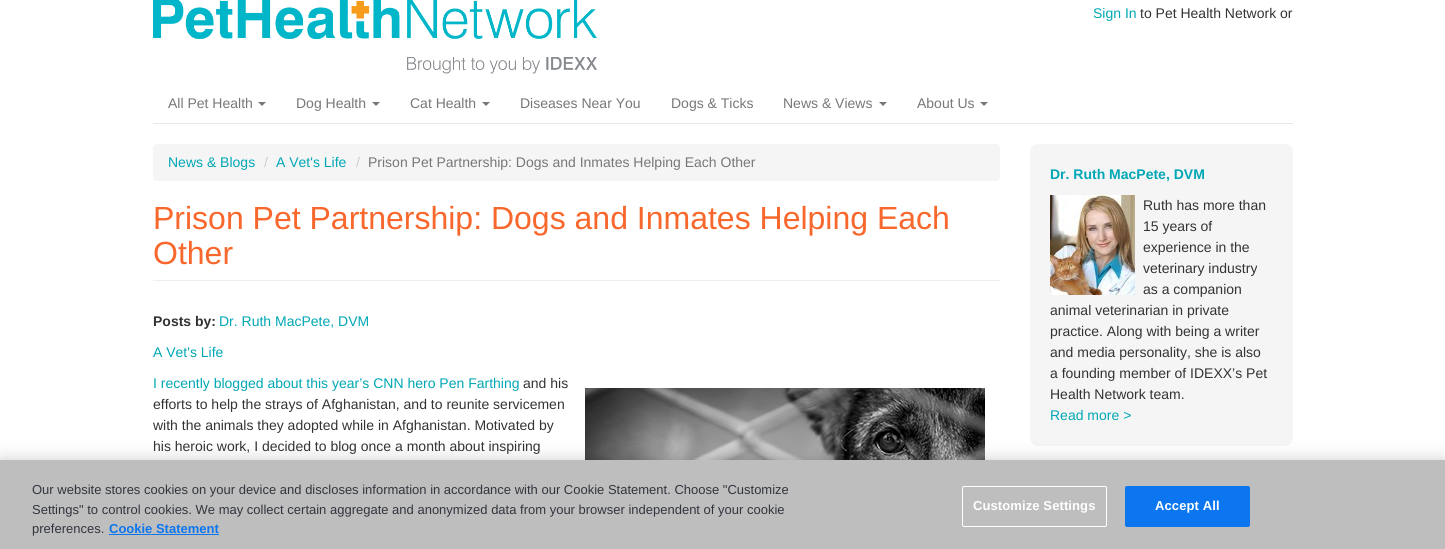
import math
import cairo


def use_color(cr, r, g, b):
  cr.set_source_rgb(r / 255, g / 255, b / 255)

def text(cr, x, y, s, family, size, color, bold=False, italic=False):
  cr.select_font_face(family, cairo.FONT_SLANT_ITALIC if italic else cairo.FONT_SLANT_NORMAL, cairo.FONT_WEIGHT_BOLD if bold else cairo.FONT_WEIGHT_NORMAL)
  cr.set_font_size(size)
  use_color(cr, *color)
  cr.move_to(x, y)
  cr.show_text(s)

def spaced_text(cr, x, y, s, letter, word):
  cr.move_to(x, y)
  for ch in s:
    cr.show_text(ch)
    cr.rel_move_to(letter + word * (ch == ' '), 0)

def box(cr, x, y, w, h, *color):
  use_color(cr, *color)
  cr.rectangle(x, y, w, h)
  cr.fill()

def round_rect(cr, x, y, w, h, r):
  cr.new_sub_path()
  for i, (u, v) in enumerate([(x + w - r, y + h - r), (x + r, y + h - r), (x + r, y + r), (x + w - r, y + r)]):
    cr.arc(u, v, r, i * math.pi / 2, (i + 1) * math.pi / 2)
  cr.close_path()

def shadow(cr, x, y, w, h, r, blur, alpha):
  cr.push_group_with_content(cairo.CONTENT_ALPHA)
  cr.set_operator(cairo.OPERATOR_SOURCE)
  for i in range(15, -16, -2):
    e = blur * i / 6
    if min(w, h) + 2 * e > 0:
      cr.set_source_rgba(0, 0, 0, alpha * math.erfc((i - 1) / 8.5) / 2)
      round_rect(cr, x - e, y - e, w + 2 * e, h + 2 * e, max(0, min(r + e + blur * .6, min(w, h) / 2 + e)))
      cr.fill()
  cr.mask(cr.pop_group())

def picture(cr, path, x, y, w, h):
  cr.save()
  cr.set_source_surface(cairo.ImageSurface.create_from_png(path), x, y)
  cr.rectangle(x, y, w, h)
  cr.fill()
  cr.restore()

def draw(cr):
  use_color(cr, 255, 255, 255)
  cr.paint()
  picture(cr, "img_01.png", 153, 0, 444, 74)
  box(cr, 153, 123, 1140, 1, 231, 231, 231)
  use_color(cr, 119, 119, 119)
  cr.new_path()
  cr.move_to(258, 102)
  cr.line_to(266, 102)
  cr.line_to(262, 106)
  cr.close_path()
  cr.fill()
  cr.new_path()
  cr.move_to(372, 102)
  cr.line_to(380, 102)
  cr.line_to(376, 106)
  cr.close_path()
  cr.fill()
  cr.new_path()
  cr.move_to(482, 102)
  cr.line_to(490, 102)
  cr.line_to(486, 106)
  cr.close_path()
  cr.fill()
  cr.new_path()
  cr.move_to(879, 102)
  cr.line_to(887, 102)
  cr.line_to(883, 106)
  cr.close_path()
  cr.fill()
  cr.new_path()
  cr.move_to(980, 102)
  cr.line_to(988, 102)
  cr.line_to(984, 106)
  cr.close_path()
  cr.fill()
  use_color(cr, 245, 245, 245)
  round_rect(cr, 153, 144, 847, 37, 4)
  cr.fill()
  box(cr, 153, 280, 847, 1, 238, 238, 238)
  picture(cr, "img_02.png", 585, 388, 400, 72)
  use_color(cr, 245, 245, 245)
  round_rect(cr, 1030, 144, 263, 302, 8)
  cr.fill()
  picture(cr, "img_03.png", 1050, 195, 85, 100)
  use_color(cr, 0, 0, 0)
  shadow(cr, 0, 460, 1445, 89, 0, 9, 0.2)
  box(cr, 0, 460, 1445, 89, 190, 190, 190)
  box(cr, 109, 534, 110, 1, 11, 118, 240)
  round_rect(cr, 962.5, 486.5, 144, 40, 1.5)
  use_color(cr, 255, 255, 255)
  cr.set_line_width(1)
  cr.stroke()
  use_color(cr, 11, 118, 240)
  round_rect(cr, 1125.5, 486.5, 124, 40, 1.5)
  cr.fill_preserve()
  cr.stroke()
  text(cr, 1093, 18, "Sign In", "Liberation Sans", 14, (0, 167, 181))
  text(cr, 1140, 18, "to Pet Health Network or", "Liberation Sans", 14, (51, 51, 51))
  text(cr, 168, 108, "All Pet Health", "Liberation Sans", 14, (119, 119, 119))
  text(cr, 296, 108, "Dog Health", "Liberation Sans", 14, (119, 119, 119))
  text(cr, 410, 108, "Cat Health", "Liberation Sans", 14, (119, 119, 119))
  text(cr, 520, 108, "Diseases Near You", "Liberation Sans", 14, (119, 119, 119))
  text(cr, 671, 108, "Dogs & Ticks", "Liberation Sans", 14, (119, 119, 119))
  text(cr, 783, 108, "News & Views", "Liberation Sans", 14, (119, 119, 119))
  text(cr, 917, 108, "About Us", "Liberation Sans", 14, (119, 119, 119))
  text(cr, 168, 167, "News & Blogs", "Liberation Sans", 14, (0, 167, 181))
  text(cr, 264, 167, "/", "Liberation Sans", 14, (204, 204, 204))
  text(cr, 276, 167, "A Vet's Life", "Liberation Sans", 14, (0, 167, 181))
  text(cr, 356, 167, "/", "Liberation Sans", 14, (204, 204, 204))
  text(cr, 368, 167, "Prison Pet Partnership: Dogs and Inmates Helping Each Other", "Liberation Sans", 14, (119, 119, 119))
  text(cr, 153, 229, "Prison Pet Partnership: Dogs and Inmates Helping Each", "Liberation Sans", 32, (248, 103, 43))
  text(cr, 153, 264, "Other", "Liberation Sans", 32, (248, 103, 43))
  text(cr, 153, 326, "Posts by:", "Liberation Sans", 14, (51, 51, 51), bold=True)
  text(cr, 219, 326, "Dr. Ruth MacPete, DVM", "Liberation Sans", 14, (0, 167, 181))
  text(cr, 153, 357, "A Vet's Life", "Liberation Sans", 14, (0, 167, 181))
  text(cr, 153, 388, "I recently blogged about this year’s CNN hero Pen Farthing", "Liberation Sans", 14, (0, 167, 181))
  text(cr, 523, 388, "and his", "Liberation Sans", 14, (51, 51, 51))
  text(cr, 153, 409, "efforts to help the strays of Afghanistan, and to reunite servicemen", "Liberation Sans", 14, (51, 51, 51))
  text(cr, 153, 430, "with the animals they adopted while in Afghanistan. Motivated by", "Liberation Sans", 14, (51, 51, 51))
  text(cr, 153, 451, "his heroic work, I decided to blog once a month about inspiring", "Liberation Sans", 14, (51, 51, 51))
  text(cr, 1050, 179, "Dr. Ruth MacPete, DVM", "Liberation Sans", 14, (0, 167, 181), bold=True)
  text(cr, 1143, 210, "Ruth has more than", "Liberation Sans", 14, (51, 51, 51))
  text(cr, 1143, 231, "15 years of", "Liberation Sans", 14, (51, 51, 51))
  text(cr, 1143, 252, "experience in the", "Liberation Sans", 14, (51, 51, 51))
  text(cr, 1143, 273, "veterinary industry", "Liberation Sans", 14, (51, 51, 51))
  text(cr, 1143, 294, "as a companion", "Liberation Sans", 14, (51, 51, 51))
  text(cr, 1050, 315, "animal veterinarian in private", "Liberation Sans", 14, (51, 51, 51))
  text(cr, 1050, 336, "practice. Along with being a writer", "Liberation Sans", 14, (51, 51, 51))
  text(cr, 1050, 357, "and media personality, she is also", "Liberation Sans", 14, (51, 51, 51))
  text(cr, 1050, 378, "a founding member of IDEXX’s Pet", "Liberation Sans", 14, (51, 51, 51))
  text(cr, 1050, 399, "Health Network team.", "Liberation Sans", 14, (51, 51, 51))
  text(cr, 1050, 420, "Read more >", "Liberation Sans", 14, (0, 167, 181))
  text(cr, 32, 494, "Our website stores cookies on your device and discloses information in accordance with our Cookie Statement. Choose \"Customize", "Liberation Sans", 13, (49, 53, 61))
  text(cr, 32, 514, "Settings\" to control cookies. We may collect certain aggregate and anonymized data from your browser independent of your cookie", "Liberation Sans", 13, (49, 53, 61))
  text(cr, 32, 533, "preferences.", "Liberation Sans", 13, (49, 53, 61))
  text(cr, 109, 533, "Cookie Statement", "Liberation Sans", 13, (11, 118, 240), bold=True)
  use_color(cr, 255, 255, 255)
  spaced_text(cr, 973, 510, "Customize Settings", 0.1, 0)
  spaced_text(cr, 1155, 510, "Accept All", 0.1, 0)


surface = cairo.ImageSurface(cairo.FORMAT_RGB24, 1445, 549)
cr = cairo.Context(surface)
options = cairo.FontOptions()
options.set_hint_metrics(cairo.HINT_METRICS_OFF)
options.set_hint_style(cairo.HINT_STYLE_NONE)
cr.set_font_options(options)
cr.set_miter_limit(4)
draw(cr)
surface.write_to_png("out.png")
